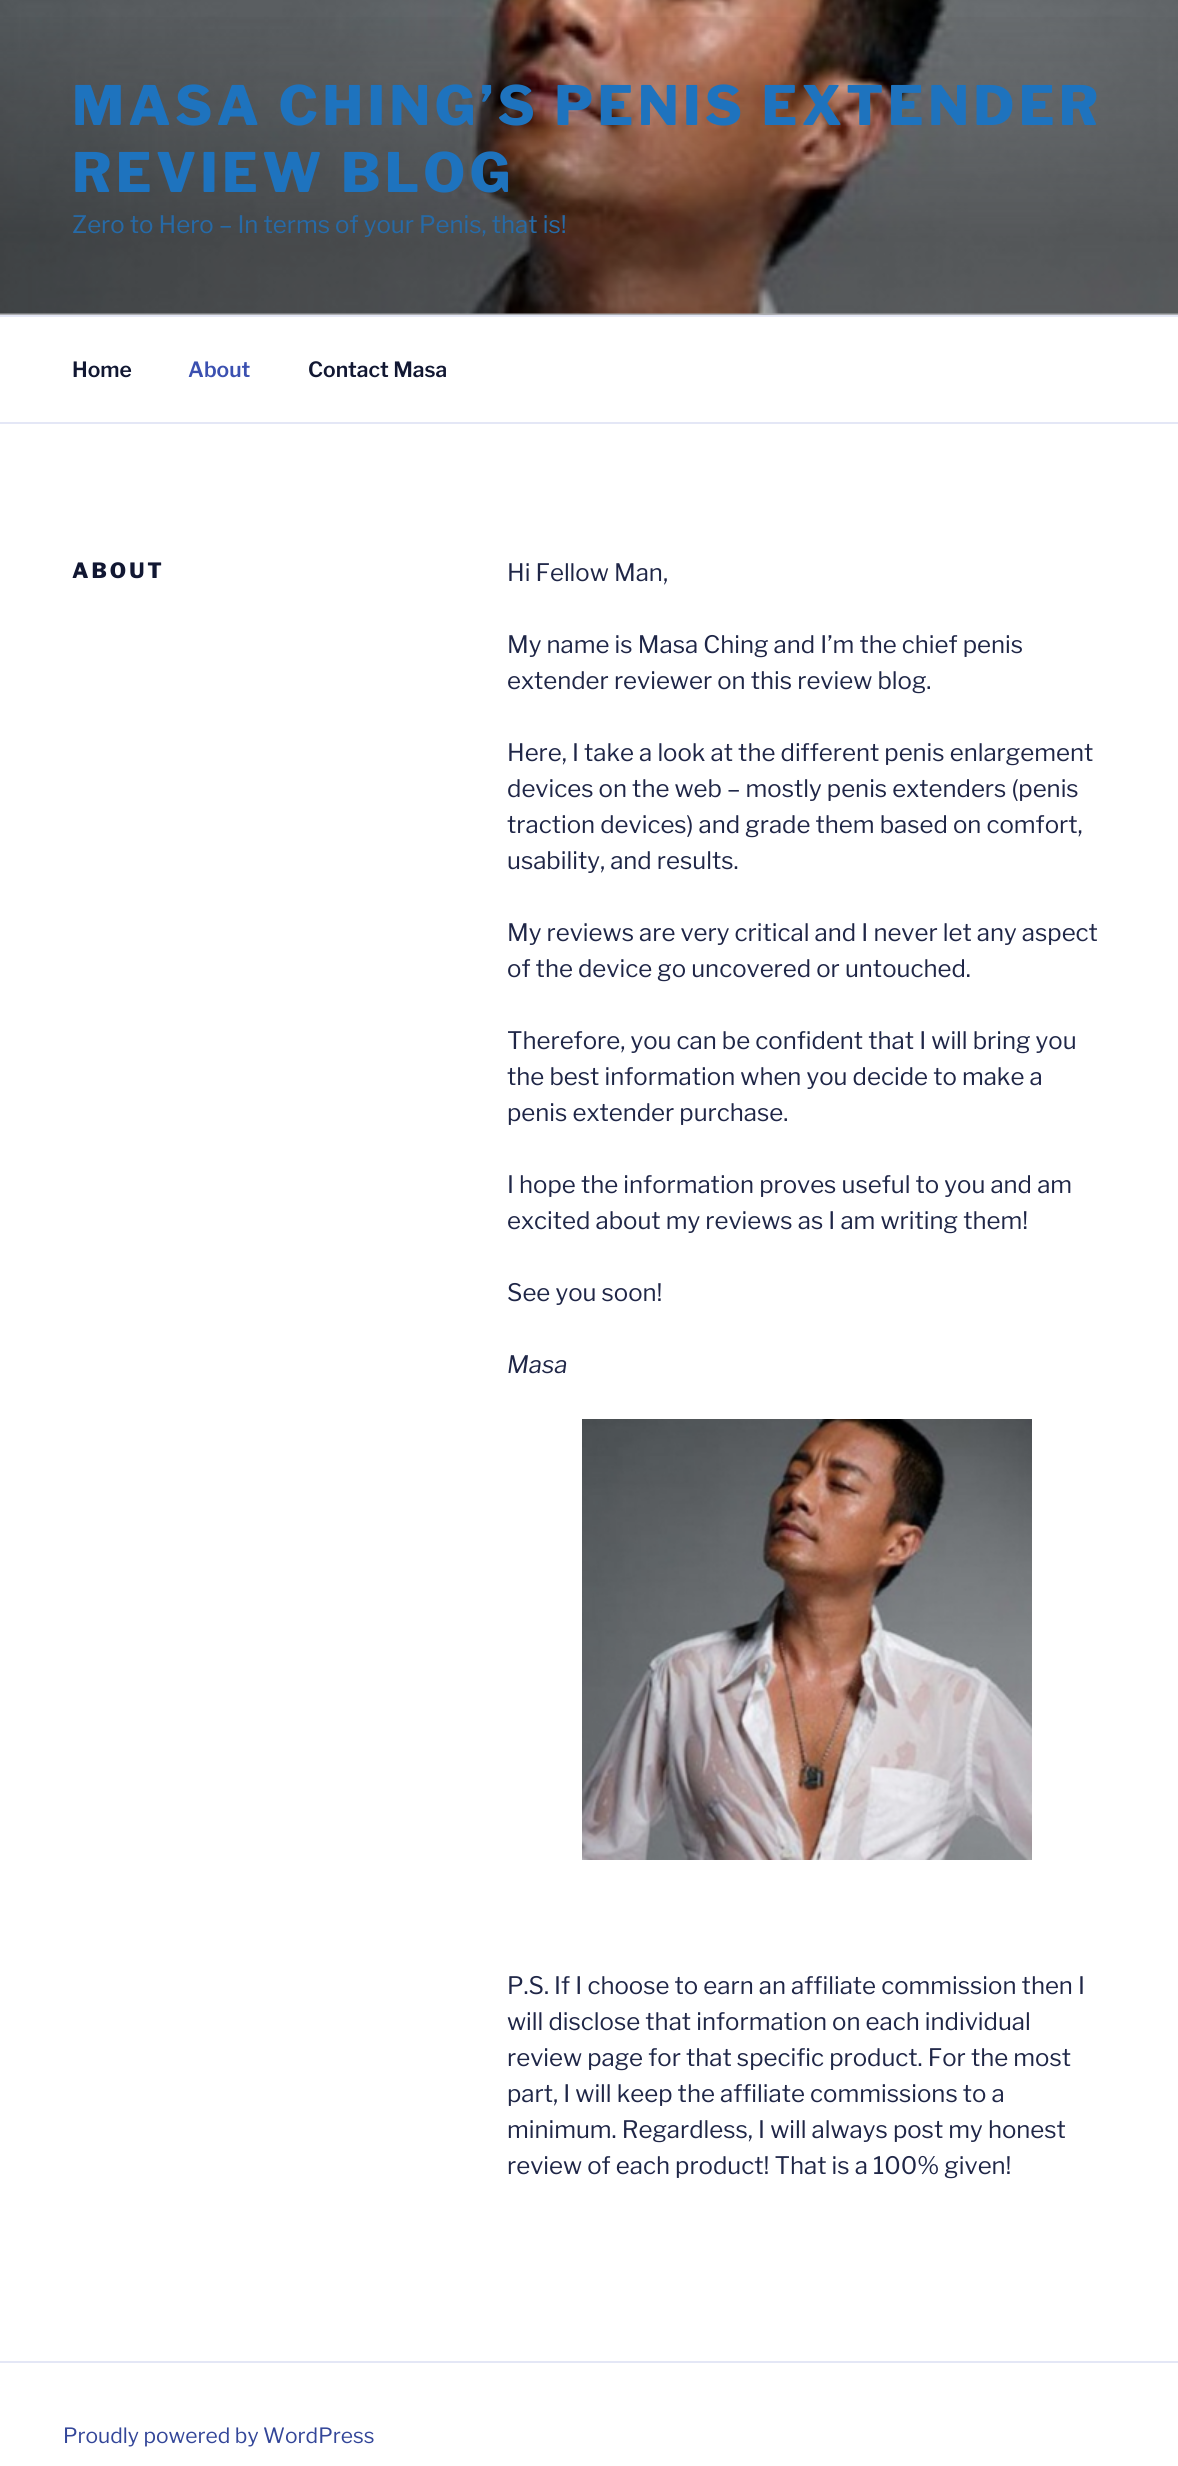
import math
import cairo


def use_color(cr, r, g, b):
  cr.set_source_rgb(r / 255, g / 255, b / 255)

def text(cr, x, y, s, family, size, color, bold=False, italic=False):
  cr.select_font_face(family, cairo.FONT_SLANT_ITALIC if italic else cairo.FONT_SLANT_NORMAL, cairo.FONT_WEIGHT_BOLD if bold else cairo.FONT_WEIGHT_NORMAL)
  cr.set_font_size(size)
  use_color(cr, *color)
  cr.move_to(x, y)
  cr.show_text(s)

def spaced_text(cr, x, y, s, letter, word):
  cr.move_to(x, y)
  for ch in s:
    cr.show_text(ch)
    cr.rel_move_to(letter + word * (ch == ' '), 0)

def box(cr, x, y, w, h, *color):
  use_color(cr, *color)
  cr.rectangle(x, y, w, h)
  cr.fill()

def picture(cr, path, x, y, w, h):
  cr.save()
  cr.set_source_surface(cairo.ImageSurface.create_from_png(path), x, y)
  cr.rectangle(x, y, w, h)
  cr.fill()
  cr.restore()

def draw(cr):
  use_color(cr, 255, 255, 255)
  cr.paint()
  box(cr, 0, 313, 1178, 2, 247, 248, 252)
  picture(cr, "img_01.png", 0, 0, 1178, 314)
  gradient = cairo.LinearGradient(590, 0, 590, 315)
  gradient.add_color_stop_rgba(0, 0, 0, 0, 0)
  gradient.add_color_stop_rgba(0.75, 0, 0, 0, 0.3)
  gradient.add_color_stop_rgba(1, 0, 0, 0, 0.3)
  cr.set_source(gradient)
  cr.rectangle(0, 17, 1178, 298)
  cr.fill()
  box(cr, 0, 315, 1178, 2, 228, 231, 246)
  box(cr, 0, 422, 1178, 2, 228, 231, 246)
  picture(cr, "img_02.png", 582, 1419, 450, 441)
  box(cr, 0, 2361, 1178, 2, 228, 231, 246)
  cr.select_font_face("Libre Franklin ExtraBold")
  cr.set_font_size(54)
  use_color(cr, 30, 115, 190)
  spaced_text(cr, 72, 125, "MASA CHING’S PENIS EXTENDER", 4.3, 0)
  spaced_text(cr, 72, 192, "REVIEW BLOG", 4.3, 0)
  text(cr, 72, 233, "Zero to Hero – In terms of your Penis, that is!", "Libre Franklin", 24, (38, 106, 167))
  text(cr, 72, 377, "Home", "Libre Franklin SemiBold", 21, (17, 23, 50))
  text(cr, 188, 377, "About", "Libre Franklin SemiBold", 21, (59, 80, 176))
  text(cr, 308, 377, "Contact Masa", "Libre Franklin SemiBold", 21, (17, 23, 50))
  cr.select_font_face("Libre Franklin ExtraBold")
  spaced_text(cr, 72, 578, "ABOUT", 3, 0)
  text(cr, 507, 581, "Hi Fellow Man,", "Libre Franklin", 24, (31, 38, 71))
  text(cr, 507, 653, "My name is Masa Ching and I’m the chief penis", "Libre Franklin", 24, (31, 38, 71))
  text(cr, 507, 689, "extender reviewer on this review blog.", "Libre Franklin", 24, (31, 38, 71))
  text(cr, 507, 761, "Here, I take a look at the different penis enlargement", "Libre Franklin", 24, (31, 38, 71))
  text(cr, 507, 797, "devices on the web – mostly penis extenders (penis", "Libre Franklin", 24, (31, 38, 71))
  text(cr, 507, 833, "traction devices) and grade them based on comfort,", "Libre Franklin", 24, (31, 38, 71))
  text(cr, 507, 869, "usability, and results.", "Libre Franklin", 24, (31, 38, 71))
  text(cr, 507, 941, "My reviews are very critical and I never let any aspect", "Libre Franklin", 24, (31, 38, 71))
  text(cr, 507, 977, "of the device go uncovered or untouched.", "Libre Franklin", 24, (31, 38, 71))
  text(cr, 507, 1049, "Therefore, you can be confident that I will bring you", "Libre Franklin", 24, (31, 38, 71))
  text(cr, 507, 1085, "the best information when you decide to make a", "Libre Franklin", 24, (31, 38, 71))
  text(cr, 507, 1121, "penis extender purchase.", "Libre Franklin", 24, (31, 38, 71))
  text(cr, 507, 1193, "I hope the information proves useful to you and am", "Libre Franklin", 24, (31, 38, 71))
  text(cr, 507, 1229, "excited about my reviews as I am writing them!", "Libre Franklin", 24, (31, 38, 71))
  text(cr, 507, 1301, "See you soon!", "Libre Franklin", 24, (31, 38, 71))
  text(cr, 507, 1373, "Masa", "Libre Franklin", 24, (31, 38, 71), italic=True)
  text(cr, 507, 1994, "P.S. If I choose to earn an affiliate commission then I", "Libre Franklin", 24, (31, 38, 71))
  text(cr, 507, 2030, "will disclose that information on each individual", "Libre Franklin", 24, (31, 38, 71))
  text(cr, 507, 2066, "review page for that specific product. For the most", "Libre Franklin", 24, (31, 38, 71))
  text(cr, 507, 2102, "part, I will keep the affiliate commissions to a", "Libre Franklin", 24, (31, 38, 71))
  text(cr, 507, 2138, "minimum. Regardless, I will always post my honest", "Libre Franklin", 24, (31, 38, 71))
  text(cr, 507, 2174, "review of each product! That is a 100% given!", "Libre Franklin", 24, (31, 38, 71))
  text(cr, 63, 2443, "Proudly powered by WordPress", "Libre Franklin", 21, (51, 70, 153))


surface = cairo.ImageSurface(cairo.FORMAT_RGB24, 1178, 2466)
cr = cairo.Context(surface)
options = cairo.FontOptions()
options.set_hint_metrics(cairo.HINT_METRICS_OFF)
options.set_hint_style(cairo.HINT_STYLE_NONE)
cr.set_font_options(options)
cr.set_miter_limit(4)
draw(cr)
surface.write_to_png("out.png")
